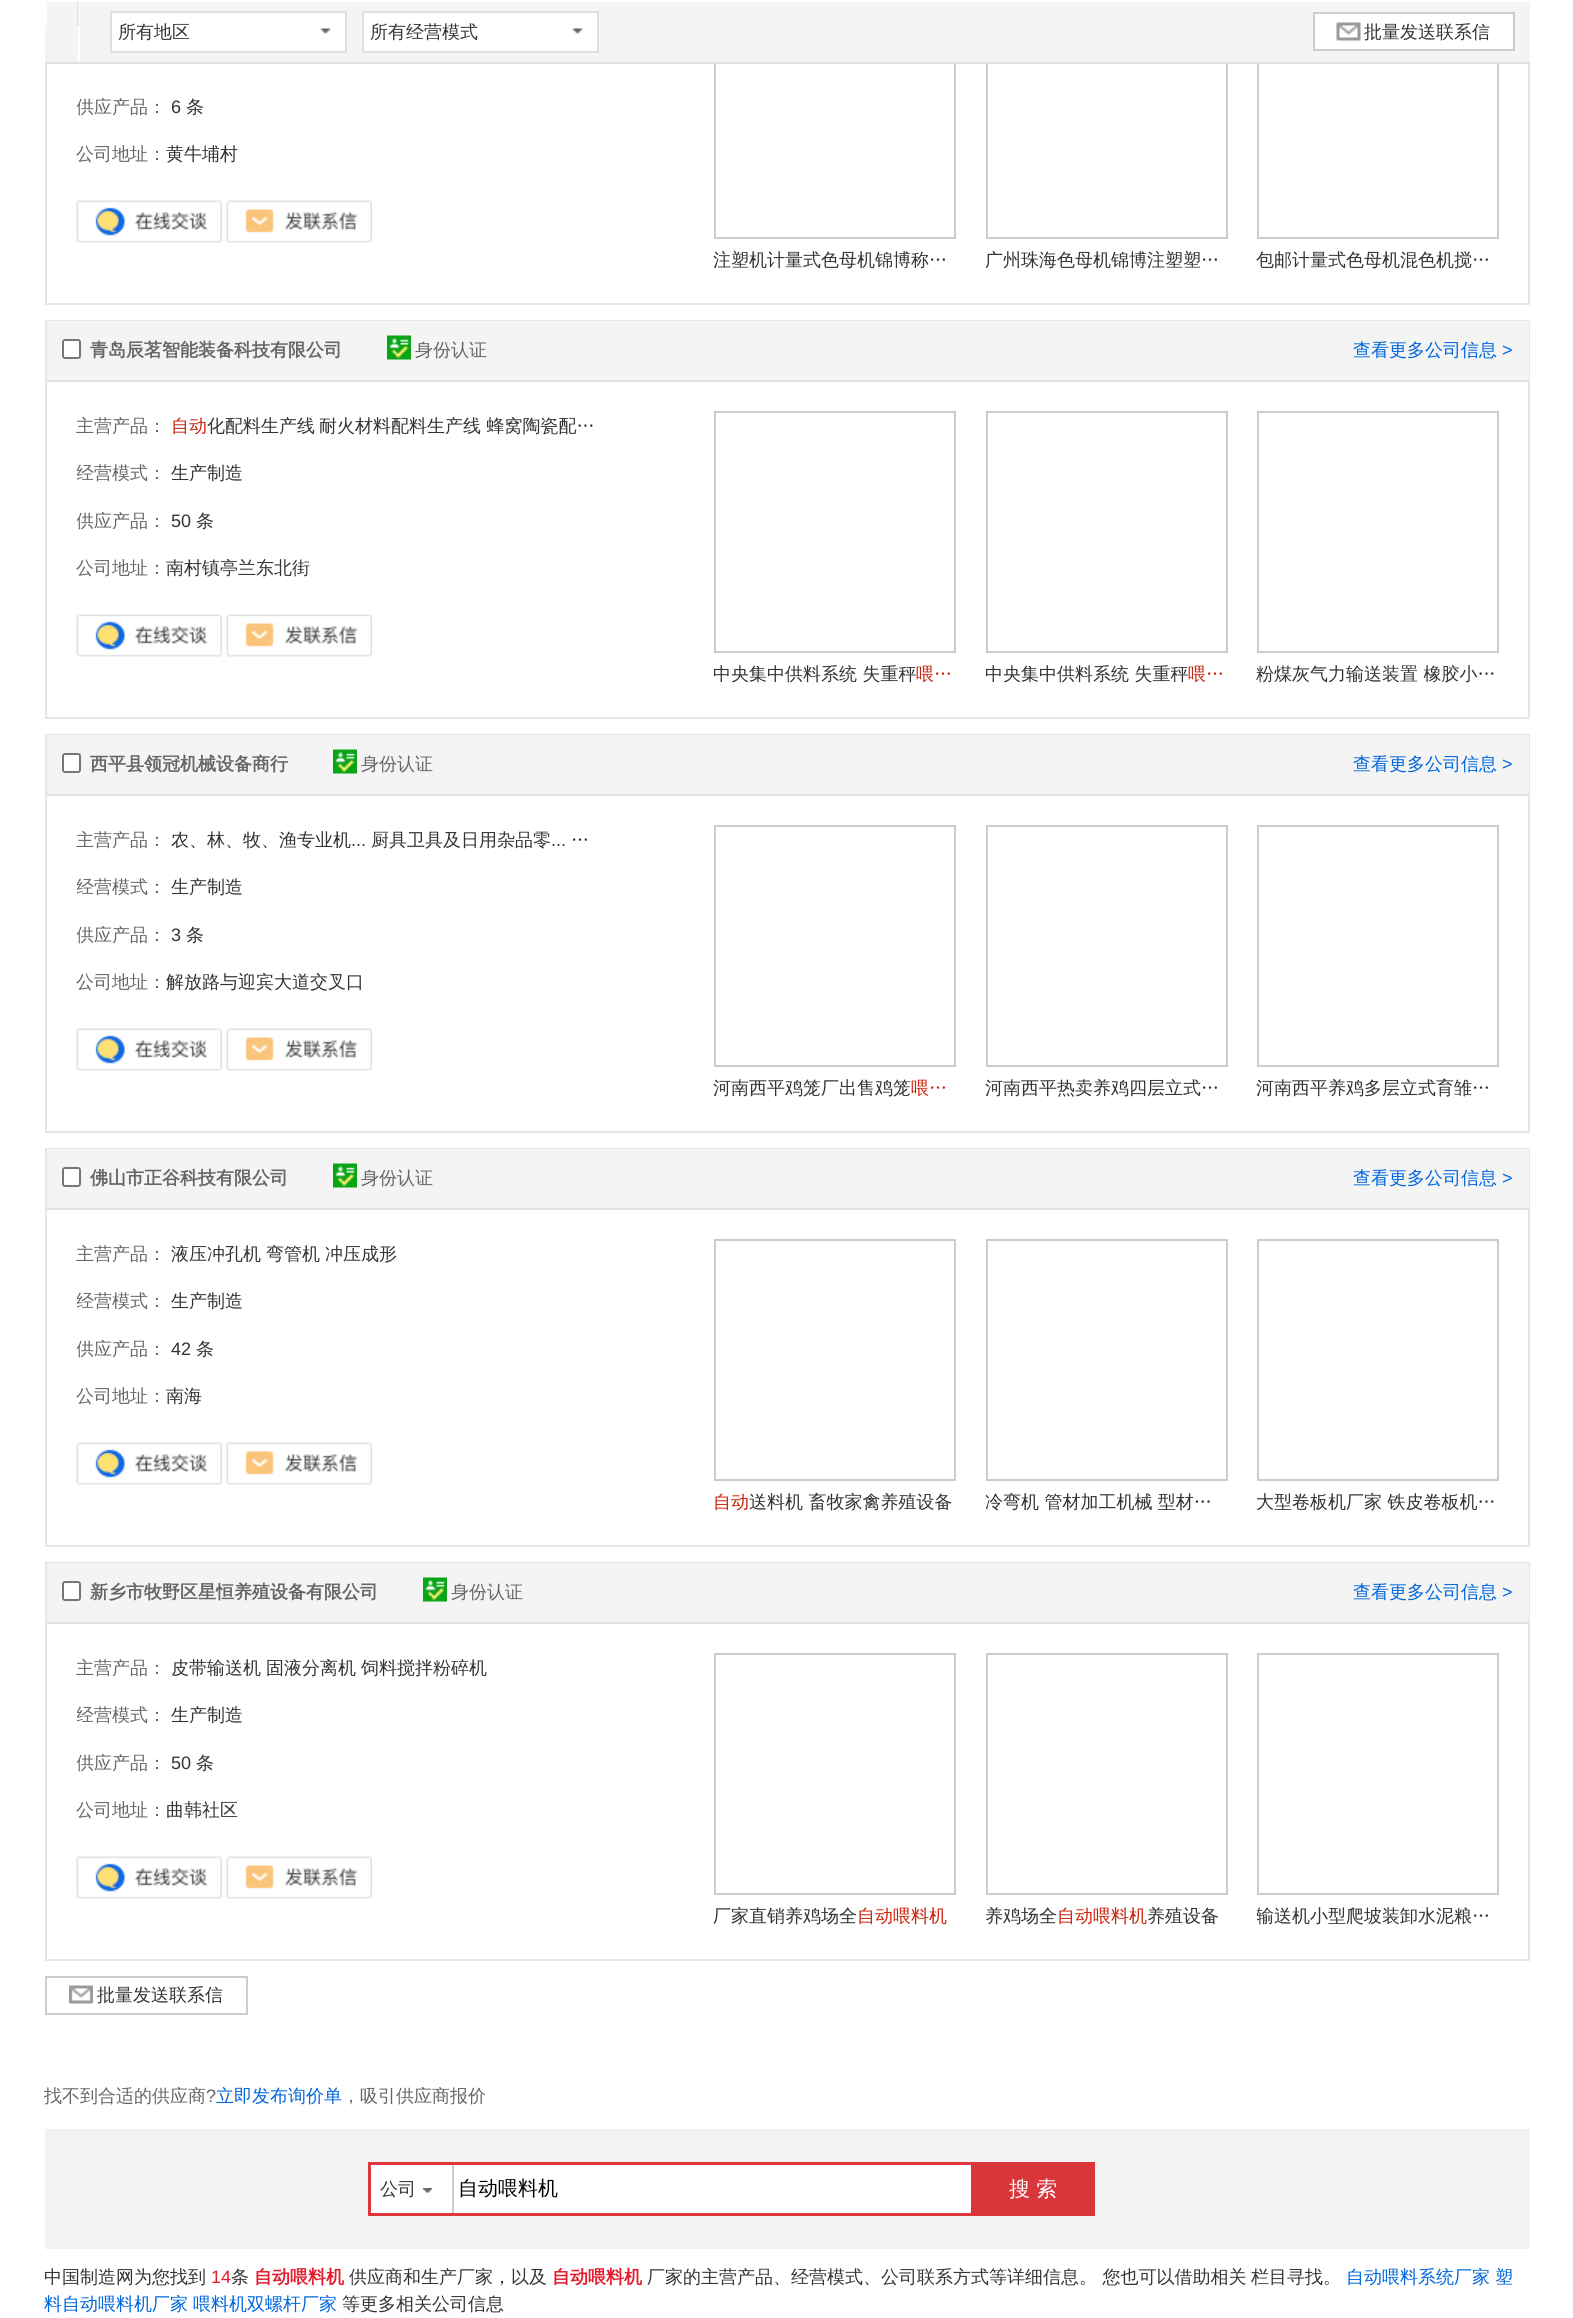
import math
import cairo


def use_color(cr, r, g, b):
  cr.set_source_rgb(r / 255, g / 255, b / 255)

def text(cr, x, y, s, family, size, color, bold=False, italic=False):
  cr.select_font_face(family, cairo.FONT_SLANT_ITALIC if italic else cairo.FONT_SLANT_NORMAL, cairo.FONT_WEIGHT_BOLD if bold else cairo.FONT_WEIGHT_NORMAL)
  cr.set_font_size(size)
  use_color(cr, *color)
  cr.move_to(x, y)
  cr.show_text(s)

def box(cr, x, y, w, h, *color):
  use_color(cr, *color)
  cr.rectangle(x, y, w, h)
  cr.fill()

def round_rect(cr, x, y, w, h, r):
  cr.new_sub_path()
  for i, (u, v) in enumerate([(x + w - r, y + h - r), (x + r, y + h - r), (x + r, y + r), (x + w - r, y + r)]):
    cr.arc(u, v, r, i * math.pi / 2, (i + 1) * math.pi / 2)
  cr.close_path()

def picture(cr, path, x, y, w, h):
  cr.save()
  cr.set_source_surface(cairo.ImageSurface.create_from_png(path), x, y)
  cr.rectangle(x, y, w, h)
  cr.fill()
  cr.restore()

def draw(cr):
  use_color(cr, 255, 255, 255)
  cr.paint()
  cr.rectangle(46, -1, 1483, 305)
  use_color(cr, 230, 230, 230)
  cr.stroke()
  box(cr, 45, 62, 1485, 2, 224, 224, 224)
  box(cr, 45, 2, 1485, 60, 244, 244, 244)
  box(cr, 45, 0, 1485, 2, 255, 255, 255)
  box(cr, 78, 2, 2, 60, 255, 255, 255)
  box(cr, 77, 2, 2, 24, 230, 230, 230)
  box(cr, 45, 2, 2, 24, 255, 255, 255)
  cr.rectangle(111, 12, 235, 40)
  cr.fill_preserve()
  use_color(cr, 224, 224, 224)
  cr.stroke()
  picture(cr, "img_01.png", 320, 28, 11, 6)
  use_color(cr, 255, 255, 255)
  cr.rectangle(363, 12, 235, 40)
  cr.fill_preserve()
  use_color(cr, 224, 224, 224)
  cr.stroke()
  picture(cr, "img_01.png", 572, 28, 11, 6)
  use_color(cr, 255, 255, 255)
  cr.rectangle(1314, 13, 200, 37)
  cr.fill_preserve()
  use_color(cr, 204, 204, 204)
  cr.stroke()
  picture(cr, "img_02.png", 1336, 22, 25, 19)
  picture(cr, "img_03.png", 76, 200, 146, 43)
  picture(cr, "img_04.png", 226, 200, 146, 43)
  box(cr, 954, 64, 2, 175, 204, 204, 204)
  box(cr, 714, 237, 242, 2, 204, 204, 204)
  box(cr, 714, 64, 2, 175, 204, 204, 204)
  box(cr, 1226, 64, 2, 175, 204, 204, 204)
  box(cr, 986, 237, 241, 2, 204, 204, 204)
  box(cr, 986, 64, 2, 175, 204, 204, 204)
  box(cr, 1497, 64, 2, 175, 204, 204, 204)
  box(cr, 1257, 237, 242, 2, 204, 204, 204)
  box(cr, 1257, 64, 2, 175, 204, 204, 204)
  cr.rectangle(46, 321, 1483, 397)
  use_color(cr, 230, 230, 230)
  cr.stroke()
  box(cr, 47, 321, 1482, 59, 244, 244, 244)
  box(cr, 47, 380, 1482, 2, 224, 224, 224)
  use_color(cr, 255, 255, 255)
  round_rect(cr, 63, 340, 17, 18, 2)
  cr.fill_preserve()
  use_color(cr, 118, 118, 118)
  cr.stroke()
  picture(cr, "img_05.png", 387, 335, 24, 25)
  picture(cr, "img_03.png", 76, 614, 146, 43)
  picture(cr, "img_04.png", 226, 614, 146, 43)
  box(cr, 714, 411, 242, 2, 204, 204, 204)
  box(cr, 954, 411, 2, 242, 204, 204, 204)
  box(cr, 714, 651, 242, 2, 204, 204, 204)
  box(cr, 714, 411, 2, 242, 204, 204, 204)
  box(cr, 986, 411, 241, 2, 204, 204, 204)
  box(cr, 1226, 411, 2, 242, 204, 204, 204)
  box(cr, 986, 651, 241, 2, 204, 204, 204)
  box(cr, 986, 411, 2, 242, 204, 204, 204)
  box(cr, 1257, 411, 242, 2, 204, 204, 204)
  box(cr, 1497, 411, 2, 242, 204, 204, 204)
  box(cr, 1257, 651, 242, 2, 204, 204, 204)
  box(cr, 1257, 411, 2, 242, 204, 204, 204)
  cr.rectangle(46, 735, 1483, 397)
  use_color(cr, 230, 230, 230)
  cr.stroke()
  box(cr, 47, 735, 1482, 59, 244, 244, 244)
  box(cr, 47, 794, 1482, 2, 224, 224, 224)
  use_color(cr, 255, 255, 255)
  round_rect(cr, 63, 754, 17, 18, 2)
  cr.fill_preserve()
  use_color(cr, 118, 118, 118)
  cr.stroke()
  picture(cr, "img_05.png", 333, 749, 24, 25)
  picture(cr, "img_03.png", 76, 1028, 146, 43)
  picture(cr, "img_04.png", 226, 1028, 146, 43)
  box(cr, 714, 825, 242, 2, 204, 204, 204)
  box(cr, 954, 825, 2, 242, 204, 204, 204)
  box(cr, 714, 1065, 242, 2, 204, 204, 204)
  box(cr, 714, 825, 2, 242, 204, 204, 204)
  box(cr, 986, 825, 241, 2, 204, 204, 204)
  box(cr, 1226, 825, 2, 242, 204, 204, 204)
  box(cr, 986, 1065, 241, 2, 204, 204, 204)
  box(cr, 986, 825, 2, 242, 204, 204, 204)
  box(cr, 1257, 825, 242, 2, 204, 204, 204)
  box(cr, 1497, 825, 2, 242, 204, 204, 204)
  box(cr, 1257, 1065, 242, 2, 204, 204, 204)
  box(cr, 1257, 825, 2, 242, 204, 204, 204)
  cr.rectangle(46, 1149, 1483, 397)
  use_color(cr, 230, 230, 230)
  cr.stroke()
  box(cr, 47, 1149, 1482, 59, 244, 244, 244)
  box(cr, 47, 1208, 1482, 2, 224, 224, 224)
  use_color(cr, 255, 255, 255)
  round_rect(cr, 63, 1168, 17, 18, 2)
  cr.fill_preserve()
  use_color(cr, 118, 118, 118)
  cr.stroke()
  picture(cr, "img_05.png", 333, 1163, 24, 25)
  picture(cr, "img_03.png", 76, 1442, 146, 43)
  picture(cr, "img_04.png", 226, 1442, 146, 43)
  box(cr, 714, 1239, 242, 2, 204, 204, 204)
  box(cr, 954, 1239, 2, 242, 204, 204, 204)
  box(cr, 714, 1479, 242, 2, 204, 204, 204)
  box(cr, 714, 1239, 2, 242, 204, 204, 204)
  box(cr, 986, 1239, 241, 2, 204, 204, 204)
  box(cr, 1226, 1239, 2, 242, 204, 204, 204)
  box(cr, 986, 1479, 241, 2, 204, 204, 204)
  box(cr, 986, 1239, 2, 242, 204, 204, 204)
  box(cr, 1257, 1239, 242, 2, 204, 204, 204)
  box(cr, 1497, 1239, 2, 242, 204, 204, 204)
  box(cr, 1257, 1479, 242, 2, 204, 204, 204)
  box(cr, 1257, 1239, 2, 242, 204, 204, 204)
  cr.rectangle(46, 1563, 1483, 397)
  use_color(cr, 230, 230, 230)
  cr.stroke()
  box(cr, 47, 1563, 1482, 59, 244, 244, 244)
  box(cr, 47, 1622, 1482, 2, 224, 224, 224)
  use_color(cr, 255, 255, 255)
  round_rect(cr, 63, 1582, 17, 18, 2)
  cr.fill_preserve()
  use_color(cr, 118, 118, 118)
  cr.stroke()
  picture(cr, "img_05.png", 423, 1577, 24, 25)
  picture(cr, "img_03.png", 76, 1856, 146, 43)
  picture(cr, "img_04.png", 226, 1856, 146, 43)
  box(cr, 714, 1653, 242, 2, 204, 204, 204)
  box(cr, 954, 1653, 2, 242, 204, 204, 204)
  box(cr, 714, 1893, 242, 2, 204, 204, 204)
  box(cr, 714, 1653, 2, 242, 204, 204, 204)
  box(cr, 986, 1653, 241, 2, 204, 204, 204)
  box(cr, 1226, 1653, 2, 242, 204, 204, 204)
  box(cr, 986, 1893, 241, 2, 204, 204, 204)
  box(cr, 986, 1653, 2, 242, 204, 204, 204)
  box(cr, 1257, 1653, 242, 2, 204, 204, 204)
  box(cr, 1497, 1653, 2, 242, 204, 204, 204)
  box(cr, 1257, 1893, 242, 2, 204, 204, 204)
  box(cr, 1257, 1653, 2, 242, 204, 204, 204)
  cr.rectangle(46, 1977, 201, 37)
  cr.stroke()
  picture(cr, "img_06.png", 69, 1985, 24, 19)
  box(cr, 45, 2129, 1485, 120, 242, 242, 242)
  box(cr, 371, 2165, 600, 48, 255, 255, 255)
  box(cr, 368, 2162, 603, 3, 222, 55, 62)
  box(cr, 368, 2213, 603, 3, 222, 55, 62)
  box(cr, 368, 2162, 3, 54, 222, 55, 62)
  box(cr, 452, 2165, 2, 48, 204, 204, 204)
  picture(cr, "img_07.png", 423, 2188, 9, 5)
  box(cr, 971, 2162, 124, 54, 217, 54, 60)
  text(cr, 118, 38, "所有地区", "WenQuanYi Zen Hei Medium", 18, (51, 51, 51))
  text(cr, 370, 38, "所有经营模式", "WenQuanYi Zen Hei Medium", 18, (51, 51, 51))
  text(cr, 1364, 38, "批量发送联系信", "WenQuanYi Zen Hei Medium", 18, (51, 51, 51))
  cr.save()
  cr.rectangle(77, 92, 525, 33)
  cr.clip()
  text(cr, 76, 113, "供应产品：", "WenQuanYi Zen Hei Medium", 18, (102, 102, 102))
  cr.restore()
  text(cr, 171, 113, "6", "Liberation Sans", 18, (51, 51, 51))
  text(cr, 186, 113, "条", "WenQuanYi Zen Hei Medium", 18, (51, 51, 51))
  text(cr, 76, 160, "公司地址：", "WenQuanYi Zen Hei Medium", 18, (102, 102, 102))
  text(cr, 166, 160, "黄牛埔村", "WenQuanYi Zen Hei Medium", 18, (51, 51, 51))
  text(cr, 713, 266, "注塑机计量式色母机锦博称…", "WenQuanYi Zen Hei Medium", 18, (51, 51, 51))
  text(cr, 985, 266, "广州珠海色母机锦博注塑塑…", "WenQuanYi Zen Hei Medium", 18, (51, 51, 51))
  text(cr, 1256, 266, "包邮计量式色母机混色机搅…", "WenQuanYi Zen Hei Medium", 18, (51, 51, 51))
  text(cr, 90, 356, "青岛辰茗智能装备科技有限公司", "WenQuanYi Zen Hei", 18, (102, 102, 102), bold=True)
  text(cr, 415, 356, "身份认证", "WenQuanYi Zen Hei Medium", 18, (102, 102, 102))
  text(cr, 1353, 356, "查看更多公司信息", "WenQuanYi Zen Hei Medium", 18, (0, 102, 221))
  text(cr, 1502, 356, ">", "Liberation Sans", 18, (0, 102, 221))
  text(cr, 76, 432, "主营产品：", "WenQuanYi Zen Hei Medium", 18, (102, 102, 102))
  text(cr, 171, 432, "自动", "WenQuanYi Zen Hei Medium", 18, (204, 34, 11))
  text(cr, 207, 432, "化配料生产线", "WenQuanYi Zen Hei Medium", 18, (51, 51, 51))
  text(cr, 319, 432, "耐火材料配料生产线 蜂窝陶瓷配…", "WenQuanYi Zen Hei Medium", 18, (51, 51, 51))
  cr.save()
  cr.rectangle(77, 459, 525, 32)
  cr.clip()
  text(cr, 76, 479, "经营模式：", "WenQuanYi Zen Hei Medium", 18, (102, 102, 102))
  cr.restore()
  text(cr, 171, 479, "生产制造", "WenQuanYi Zen Hei Medium", 18, (51, 51, 51))
  cr.save()
  cr.rectangle(77, 506, 525, 33)
  cr.clip()
  text(cr, 76, 527, "供应产品：", "WenQuanYi Zen Hei Medium", 18, (102, 102, 102))
  cr.restore()
  text(cr, 171, 527, "50", "Liberation Sans", 18, (51, 51, 51))
  text(cr, 196, 527, "条", "WenQuanYi Zen Hei Medium", 18, (51, 51, 51))
  text(cr, 76, 574, "公司地址：", "WenQuanYi Zen Hei Medium", 18, (102, 102, 102))
  text(cr, 166, 574, "南村镇亭兰东北街", "WenQuanYi Zen Hei Medium", 18, (51, 51, 51))
  text(cr, 713, 680, "中央集中供料系统 失重秤", "WenQuanYi Zen Hei Medium", 18, (51, 51, 51))
  text(cr, 916, 680, "喂…", "WenQuanYi Zen Hei Medium", 18, (204, 34, 11))
  cr.save()
  cr.rectangle(986, 660, 240, 27)
  cr.clip()
  text(cr, 985, 680, "中央集中供料系统 失重秤", "WenQuanYi Zen Hei Medium", 18, (51, 51, 51))
  cr.restore()
  text(cr, 1188, 680, "喂…", "WenQuanYi Zen Hei Medium", 18, (204, 34, 11))
  text(cr, 1256, 680, "粉煤灰气力输送装置 橡胶小…", "WenQuanYi Zen Hei Medium", 18, (51, 51, 51))
  text(cr, 90, 770, "西平县领冠机械设备商行", "WenQuanYi Zen Hei", 18, (102, 102, 102), bold=True)
  text(cr, 361, 770, "身份认证", "WenQuanYi Zen Hei Medium", 18, (102, 102, 102))
  text(cr, 1353, 770, "查看更多公司信息", "WenQuanYi Zen Hei Medium", 18, (0, 102, 221))
  text(cr, 1502, 770, ">", "Liberation Sans", 18, (0, 102, 221))
  text(cr, 76, 846, "主营产品：", "WenQuanYi Zen Hei Medium", 18, (102, 102, 102))
  text(cr, 171, 846, "农、林、牧、渔专业机", "WenQuanYi Zen Hei Medium", 18, (51, 51, 51))
  text(cr, 371, 846, "厨具卫具及日用杂品零", "WenQuanYi Zen Hei Medium", 18, (51, 51, 51))
  text(cr, 571, 846, "…", "WenQuanYi Zen Hei Medium", 18, (51, 51, 51))
  text(cr, 351, 846, "...", "Liberation Sans", 18, (51, 51, 51))
  text(cr, 551, 846, "...", "Liberation Sans", 18, (51, 51, 51))
  cr.save()
  cr.rectangle(77, 873, 525, 32)
  cr.clip()
  text(cr, 76, 893, "经营模式：", "WenQuanYi Zen Hei Medium", 18, (102, 102, 102))
  cr.restore()
  text(cr, 171, 893, "生产制造", "WenQuanYi Zen Hei Medium", 18, (51, 51, 51))
  cr.save()
  cr.rectangle(77, 920, 525, 33)
  cr.clip()
  text(cr, 76, 941, "供应产品：", "WenQuanYi Zen Hei Medium", 18, (102, 102, 102))
  cr.restore()
  text(cr, 171, 941, "3", "Liberation Sans", 18, (51, 51, 51))
  text(cr, 186, 941, "条", "WenQuanYi Zen Hei Medium", 18, (51, 51, 51))
  text(cr, 76, 988, "公司地址：", "WenQuanYi Zen Hei Medium", 18, (102, 102, 102))
  text(cr, 166, 988, "解放路与迎宾大道交叉口", "WenQuanYi Zen Hei Medium", 18, (51, 51, 51))
  text(cr, 713, 1094, "河南西平鸡笼厂出售鸡笼", "WenQuanYi Zen Hei Medium", 18, (51, 51, 51))
  text(cr, 911, 1094, "喂…", "WenQuanYi Zen Hei Medium", 18, (204, 34, 11))
  text(cr, 985, 1094, "河南西平热卖养鸡四层立式…", "WenQuanYi Zen Hei Medium", 18, (51, 51, 51))
  text(cr, 1256, 1094, "河南西平养鸡多层立式育雏…", "WenQuanYi Zen Hei Medium", 18, (51, 51, 51))
  text(cr, 90, 1184, "佛山市正谷科技有限公司", "WenQuanYi Zen Hei", 18, (102, 102, 102), bold=True)
  text(cr, 361, 1184, "身份认证", "WenQuanYi Zen Hei Medium", 18, (102, 102, 102))
  text(cr, 1353, 1184, "查看更多公司信息", "WenQuanYi Zen Hei Medium", 18, (0, 102, 221))
  text(cr, 1502, 1184, ">", "Liberation Sans", 18, (0, 102, 221))
  text(cr, 76, 1260, "主营产品：", "WenQuanYi Zen Hei Medium", 18, (102, 102, 102))
  text(cr, 171, 1260, "液压冲孔机", "WenQuanYi Zen Hei Medium", 18, (51, 51, 51))
  text(cr, 266, 1260, "弯管机", "WenQuanYi Zen Hei Medium", 18, (51, 51, 51))
  text(cr, 325, 1260, "冲压成形", "WenQuanYi Zen Hei Medium", 18, (51, 51, 51))
  cr.save()
  cr.rectangle(77, 1287, 525, 32)
  cr.clip()
  text(cr, 76, 1307, "经营模式：", "WenQuanYi Zen Hei Medium", 18, (102, 102, 102))
  cr.restore()
  text(cr, 171, 1307, "生产制造", "WenQuanYi Zen Hei Medium", 18, (51, 51, 51))
  cr.save()
  cr.rectangle(77, 1334, 525, 33)
  cr.clip()
  text(cr, 76, 1355, "供应产品：", "WenQuanYi Zen Hei Medium", 18, (102, 102, 102))
  cr.restore()
  text(cr, 171, 1355, "42", "Liberation Sans", 18, (51, 51, 51))
  text(cr, 196, 1355, "条", "WenQuanYi Zen Hei Medium", 18, (51, 51, 51))
  text(cr, 76, 1402, "公司地址：", "WenQuanYi Zen Hei Medium", 18, (102, 102, 102))
  text(cr, 166, 1402, "南海", "WenQuanYi Zen Hei Medium", 18, (51, 51, 51))
  text(cr, 713, 1508, "自动", "WenQuanYi Zen Hei Medium", 18, (204, 34, 11))
  text(cr, 749, 1508, "送料机 畜牧家禽养殖设备", "WenQuanYi Zen Hei Medium", 18, (51, 51, 51))
  cr.save()
  cr.rectangle(986, 1488, 240, 27)
  cr.clip()
  text(cr, 985, 1508, "冷弯机 管材加工机械 型材…", "WenQuanYi Zen Hei Medium", 18, (51, 51, 51))
  cr.restore()
  text(cr, 1256, 1508, "大型卷板机厂家 铁皮卷板机…", "WenQuanYi Zen Hei Medium", 18, (51, 51, 51))
  text(cr, 90, 1598, "新乡市牧野区星恒养殖设备有限公司", "WenQuanYi Zen Hei", 18, (102, 102, 102), bold=True)
  text(cr, 451, 1598, "身份认证", "WenQuanYi Zen Hei Medium", 18, (102, 102, 102))
  text(cr, 1353, 1598, "查看更多公司信息", "WenQuanYi Zen Hei Medium", 18, (0, 102, 221))
  text(cr, 1502, 1598, ">", "Liberation Sans", 18, (0, 102, 221))
  text(cr, 76, 1674, "主营产品：", "WenQuanYi Zen Hei Medium", 18, (102, 102, 102))
  text(cr, 171, 1674, "皮带输送机", "WenQuanYi Zen Hei Medium", 18, (51, 51, 51))
  text(cr, 266, 1674, "固液分离机", "WenQuanYi Zen Hei Medium", 18, (51, 51, 51))
  text(cr, 361, 1674, "饲料搅拌粉碎机", "WenQuanYi Zen Hei Medium", 18, (51, 51, 51))
  cr.save()
  cr.rectangle(77, 1701, 525, 32)
  cr.clip()
  text(cr, 76, 1721, "经营模式：", "WenQuanYi Zen Hei Medium", 18, (102, 102, 102))
  cr.restore()
  text(cr, 171, 1721, "生产制造", "WenQuanYi Zen Hei Medium", 18, (51, 51, 51))
  cr.save()
  cr.rectangle(77, 1748, 525, 33)
  cr.clip()
  text(cr, 76, 1769, "供应产品：", "WenQuanYi Zen Hei Medium", 18, (102, 102, 102))
  cr.restore()
  text(cr, 171, 1769, "50", "Liberation Sans", 18, (51, 51, 51))
  text(cr, 196, 1769, "条", "WenQuanYi Zen Hei Medium", 18, (51, 51, 51))
  text(cr, 76, 1816, "公司地址：", "WenQuanYi Zen Hei Medium", 18, (102, 102, 102))
  text(cr, 166, 1816, "曲韩社区", "WenQuanYi Zen Hei Medium", 18, (51, 51, 51))
  text(cr, 713, 1922, "厂家直销养鸡场全", "WenQuanYi Zen Hei Medium", 18, (51, 51, 51))
  text(cr, 857, 1922, "自动喂料机", "WenQuanYi Zen Hei Medium", 18, (204, 34, 11))
  text(cr, 985, 1922, "养鸡场全", "WenQuanYi Zen Hei Medium", 18, (51, 51, 51))
  text(cr, 1057, 1922, "自动喂料机", "WenQuanYi Zen Hei Medium", 18, (204, 34, 11))
  text(cr, 1147, 1922, "养殖设备", "WenQuanYi Zen Hei Medium", 18, (51, 51, 51))
  cr.save()
  cr.rectangle(1257, 1902, 240, 27)
  cr.clip()
  text(cr, 1256, 1922, "输送机小型爬坡装卸水泥粮…", "WenQuanYi Zen Hei Medium", 18, (51, 51, 51))
  cr.restore()
  text(cr, 97, 2001, "批量发送联系信", "WenQuanYi Zen Hei Medium", 18, (51, 51, 51))
  text(cr, 44, 2102, "找不到合适的供应商", "WenQuanYi Zen Hei Medium", 18, (102, 102, 102))
  text(cr, 206, 2102, "?", "Liberation Sans", 18, (102, 102, 102))
  text(cr, 216, 2102, "立即发布询价单", "WenQuanYi Zen Hei Medium", 18, (0, 102, 221))
  text(cr, 342, 2102, "，吸引供应商报价", "WenQuanYi Zen Hei Medium", 18, (102, 102, 102))
  text(cr, 380, 2195, "公司", "WenQuanYi Zen Hei Medium", 18, (51, 51, 51))
  text(cr, 458, 2195, "自动喂料机", "WenQuanYi Zen Hei Medium", 20, (0, 0, 0))
  text(cr, 1009, 2196, "搜 索", "WenQuanYi Zen Hei Medium", 21, (255, 255, 255))
  text(cr, 44, 2283, "中国制造网为您找到", "WenQuanYi Zen Hei Medium", 18, (51, 51, 51))
  text(cr, 211, 2283, "14", "Liberation Sans", 18, (228, 28, 46))
  text(cr, 231, 2283, "条", "WenQuanYi Zen Hei Medium", 18, (51, 51, 51))
  text(cr, 254, 2283, "自动喂料机", "WenQuanYi Zen Hei", 18, (228, 28, 46), bold=True)
  text(cr, 349, 2283, "供应商和生产厂家，以及", "WenQuanYi Zen Hei Medium", 18, (51, 51, 51))
  text(cr, 552, 2283, "自动喂料机", "WenQuanYi Zen Hei", 18, (228, 28, 46), bold=True)
  text(cr, 647, 2283, "厂家的主营产品、经营模式、公司联系方式等详细信息。 您也可以借助相关", "WenQuanYi Zen Hei Medium", 18, (51, 51, 51))
  text(cr, 1251, 2283, "栏目寻找。", "WenQuanYi Zen Hei Medium", 18, (51, 51, 51))
  text(cr, 1346, 2283, "自动喂料系统厂家", "WenQuanYi Zen Hei Medium", 18, (0, 102, 221))
  text(cr, 1495, 2283, "塑", "WenQuanYi Zen Hei Medium", 18, (0, 102, 221))
  text(cr, 44, 2310, "料自动喂料机厂家", "WenQuanYi Zen Hei Medium", 18, (0, 102, 221))
  text(cr, 193, 2310, "喂料机双螺杆厂家", "WenQuanYi Zen Hei Medium", 18, (0, 102, 221))
  text(cr, 342, 2310, "等更多相关公司信息", "WenQuanYi Zen Hei Medium", 18, (51, 51, 51))


surface = cairo.ImageSurface(cairo.FORMAT_RGB24, 1573, 2318)
cr = cairo.Context(surface)
options = cairo.FontOptions()
options.set_hint_metrics(cairo.HINT_METRICS_OFF)
options.set_hint_style(cairo.HINT_STYLE_NONE)
cr.set_font_options(options)
cr.set_miter_limit(4)
draw(cr)
surface.write_to_png("out.png")
